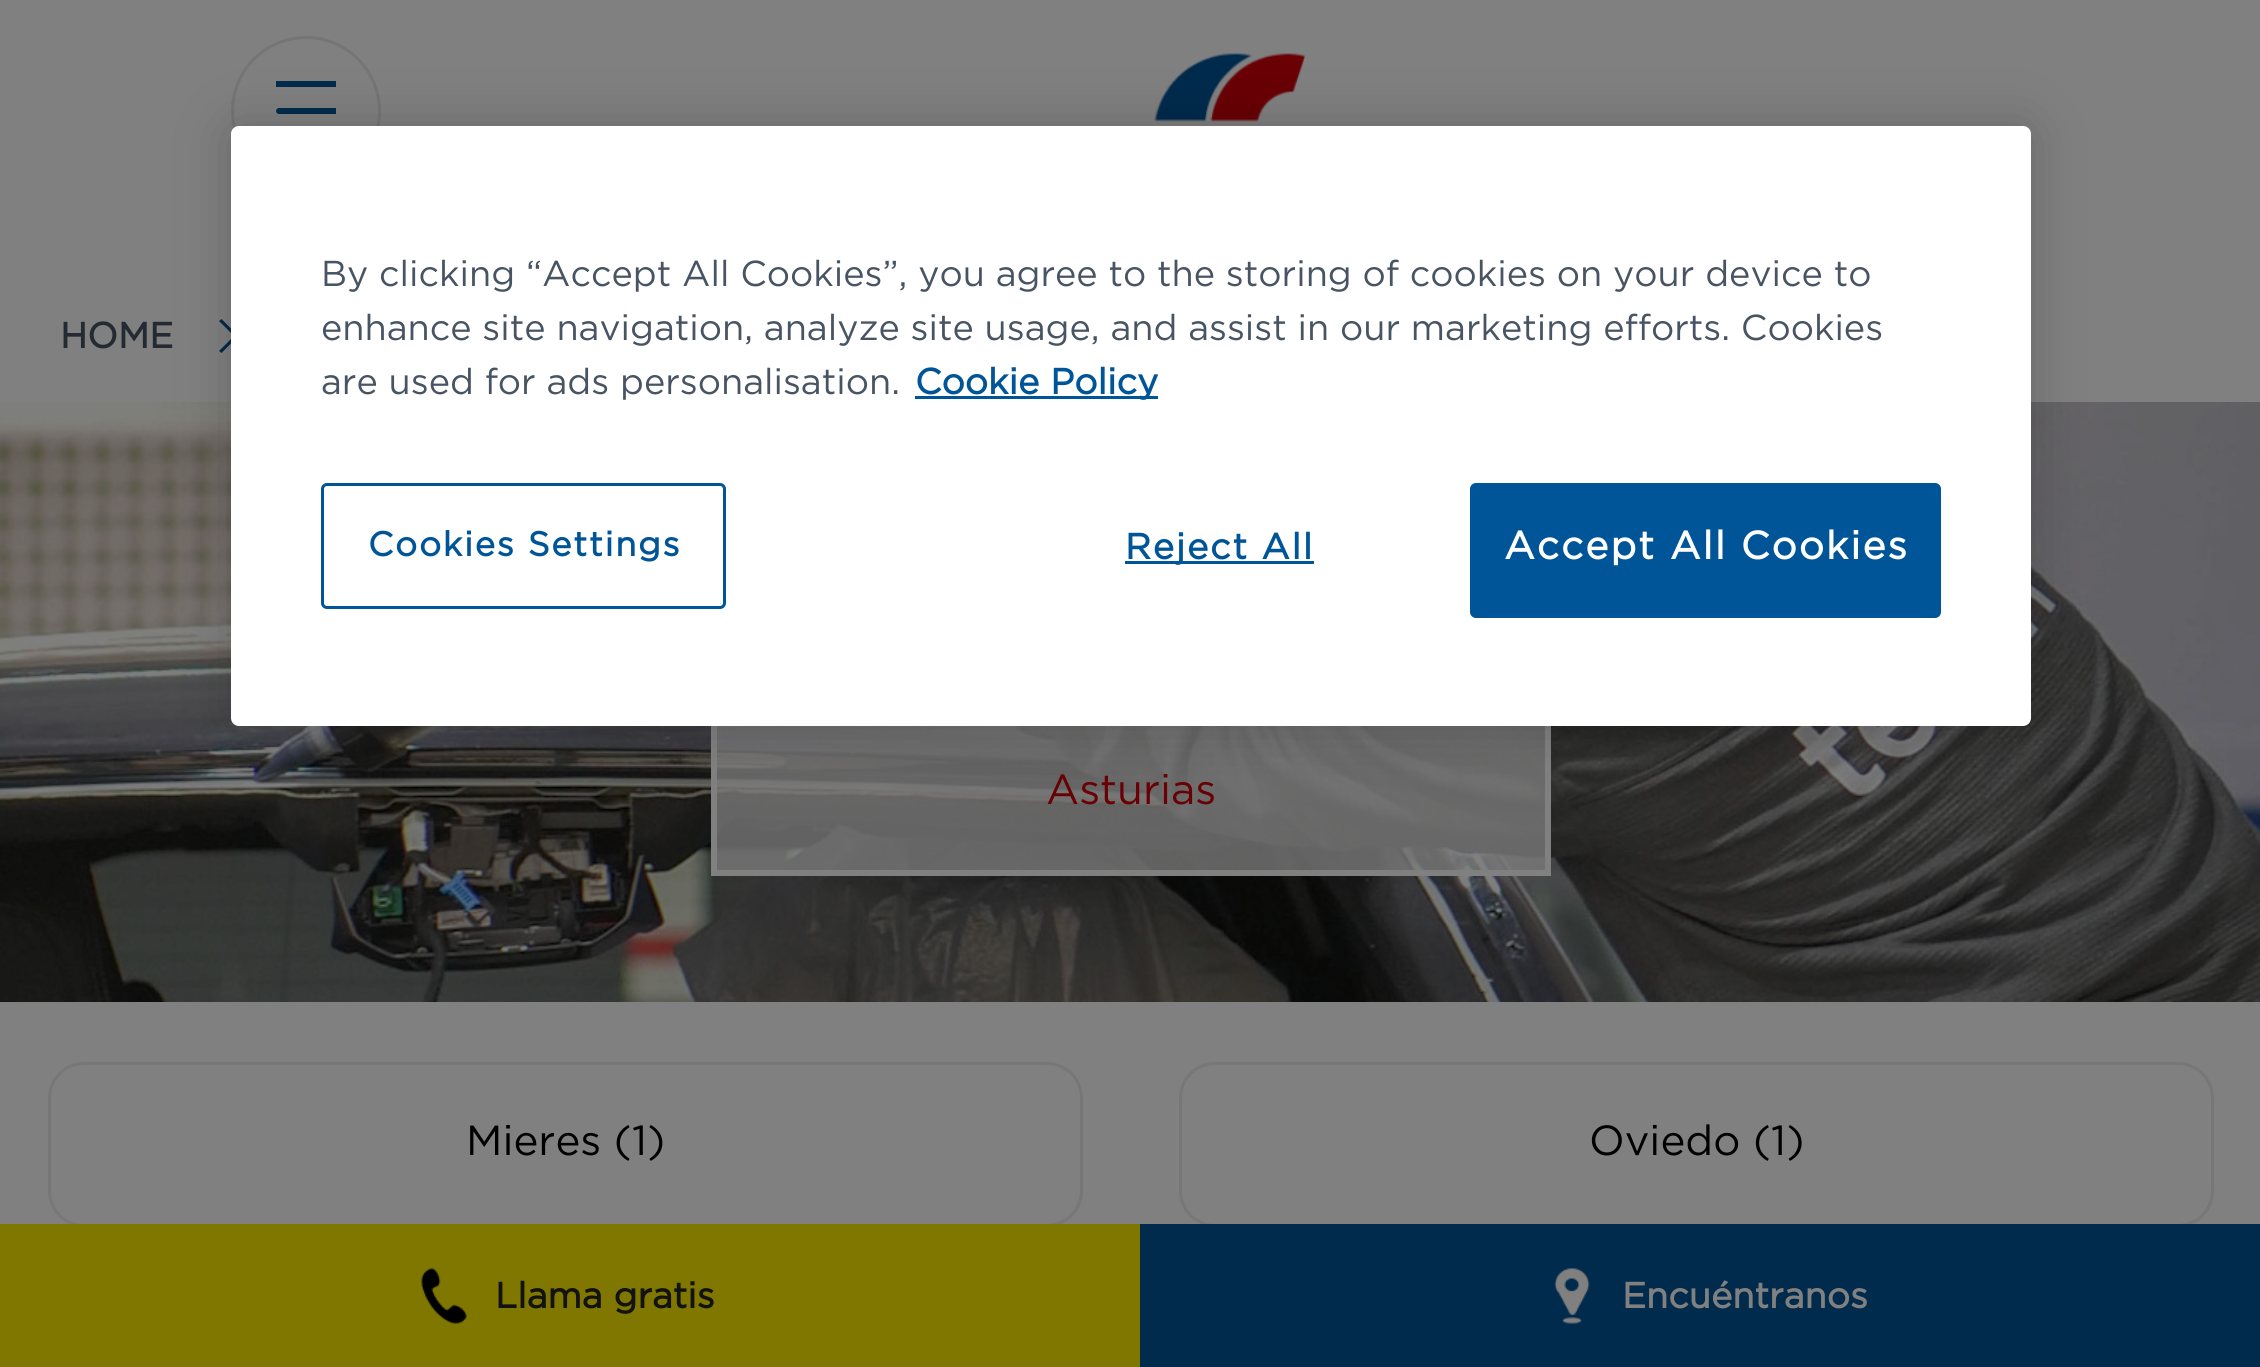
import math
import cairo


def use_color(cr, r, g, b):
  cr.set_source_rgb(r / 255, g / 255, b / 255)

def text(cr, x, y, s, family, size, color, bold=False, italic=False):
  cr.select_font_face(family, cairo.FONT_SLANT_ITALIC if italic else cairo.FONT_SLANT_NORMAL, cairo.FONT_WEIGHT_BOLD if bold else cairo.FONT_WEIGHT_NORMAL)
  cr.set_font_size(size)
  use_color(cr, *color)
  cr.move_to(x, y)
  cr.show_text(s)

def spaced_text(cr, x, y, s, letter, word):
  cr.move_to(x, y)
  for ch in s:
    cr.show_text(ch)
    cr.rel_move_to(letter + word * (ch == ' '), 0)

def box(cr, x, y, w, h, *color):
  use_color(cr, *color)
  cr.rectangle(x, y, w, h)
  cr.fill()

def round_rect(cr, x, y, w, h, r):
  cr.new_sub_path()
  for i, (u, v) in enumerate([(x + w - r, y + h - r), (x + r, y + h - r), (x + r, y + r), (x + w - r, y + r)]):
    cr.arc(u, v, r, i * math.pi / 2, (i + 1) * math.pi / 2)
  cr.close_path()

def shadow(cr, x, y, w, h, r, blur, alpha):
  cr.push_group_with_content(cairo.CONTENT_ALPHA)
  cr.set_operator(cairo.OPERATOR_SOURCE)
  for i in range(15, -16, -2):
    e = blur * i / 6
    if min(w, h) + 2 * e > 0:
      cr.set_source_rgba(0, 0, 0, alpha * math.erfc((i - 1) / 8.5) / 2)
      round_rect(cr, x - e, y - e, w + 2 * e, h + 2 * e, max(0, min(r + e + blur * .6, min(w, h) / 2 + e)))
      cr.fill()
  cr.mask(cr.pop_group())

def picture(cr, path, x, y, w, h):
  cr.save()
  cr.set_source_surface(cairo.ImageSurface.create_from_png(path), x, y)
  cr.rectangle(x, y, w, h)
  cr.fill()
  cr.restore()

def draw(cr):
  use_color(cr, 128, 128, 128)
  cr.paint()
  use_color(cr, 0, 43, 76)
  cr.new_path()
  cr.move_to(219, 321)
  cr.line_to(221.5, 319)
  cr.line_to(238.5, 336)
  cr.line_to(236, 338)
  cr.close_path()
  cr.fill()
  cr.new_path()
  cr.move_to(219, 351)
  cr.line_to(236, 334)
  cr.line_to(238.5, 336)
  cr.line_to(221.5, 353)
  cr.close_path()
  cr.fill()
  picture(cr, "img_01.png", 0, 402, 2260, 600)
  cr.set_source_rgba(0.502, 0.502, 0.502, 0.74)
  cr.rectangle(717, 726, 828, 144)
  cr.fill()
  cr.rectangle(714, 531, 834, 342)
  use_color(cr, 128, 128, 128)
  cr.set_line_width(6)
  cr.stroke()
  cr.arc(306, 111, 73.5, 0, 2 * math.pi)
  use_color(cr, 117, 117, 117)
  cr.set_line_width(3)
  cr.stroke()
  box(cr, 276, 81, 60, 6, 0, 43, 76)
  cr.new_path()
  cr.move_to(279, 108)
  cr.line_to(336, 108)
  cr.line_to(336, 114)
  cr.line_to(279, 114)
  cr.curve_to(277.5, 114, 276, 112.5, 276, 111)
  cr.curve_to(276, 109.5, 277.5, 108, 279, 108)
  cr.close_path()
  cr.fill()
  picture(cr, "img_02.png", 1154, 53, 151, 69)
  use_color(cr, 0, 0, 0)
  shadow(cr, 231, 126, 1800, 600, 8, 27, 0.2)
  use_color(cr, 255, 255, 255)
  round_rect(cr, 231, 126, 1800, 600, 8)
  cr.fill()
  box(cr, 915, 396, 243, 3, 0, 85, 152)
  round_rect(cr, 322.5, 484.5, 402, 123, 4.5)
  cr.stroke()
  box(cr, 1125, 561, 189, 3, 0, 85, 152)
  round_rect(cr, 1471.5, 484.5, 468, 132, 4.5)
  cr.fill_preserve()
  cr.stroke()
  round_rect(cr, 49.5, 1063.5, 1032, 162, 34.5)
  use_color(cr, 119, 119, 119)
  cr.stroke()
  round_rect(cr, 1180.5, 1063.5, 1032, 162, 34.5)
  cr.stroke()
  box(cr, 0, 1224, 1140, 143, 128, 119, 0)
  picture(cr, "img_03.png", 421, 1268, 46, 56)
  box(cr, 1140, 1224, 1120, 143, 0, 43, 76)
  picture(cr, "img_04.png", 1554, 1268, 36, 56)
  text(cr, 321, 286, "By clicking “Accept All Cookies”, you agree to the storing of cookies on your device to", "Gotham", 36, (72, 84, 99))
  text(cr, 321, 340, "enhance site navigation, analyze site usage, and assist in our marketing efforts. Cookies", "Gotham", 36, (72, 84, 99))
  text(cr, 321, 394, "are used for ads personalisation.", "Gotham", 36, (72, 84, 99))
  text(cr, 915, 394, "Cookie Policy", "Gotham", 36, (0, 85, 152), bold=True)
  cr.set_font_size(34.25)
  spaced_text(cr, 368, 556, "Cookies Settings", 1.75, 0)
  cr.set_font_size(36)
  spaced_text(cr, 1125, 559, "Reject All", 1.75, 0)
  cr.set_font_size(39)
  use_color(cr, 255, 255, 255)
  spaced_text(cr, 1504, 559, "Accept All Cookies", 2, 0)
  text(cr, 60, 348, "HOME", "Gotham", 36, (36, 42, 50), bold=True)
  text(cr, 1046, 804, "Asturias", "Gotham", 42, (105, 0, 4))
  text(cr, 466, 1155, "Mieres (1)", "Gotham", 42, (0, 0, 0))
  text(cr, 1589, 1155, "Oviedo (1)", "Gotham", 42, (0, 0, 0))
  text(cr, 495, 1308, "Llama gratis", "Gotham", 36, (18, 18, 18), bold=True)
  text(cr, 1622, 1308, "Encuéntranos", "Gotham", 36, (128, 128, 128), bold=True)


surface = cairo.ImageSurface(cairo.FORMAT_RGB24, 2260, 1367)
cr = cairo.Context(surface)
options = cairo.FontOptions()
options.set_hint_metrics(cairo.HINT_METRICS_OFF)
options.set_hint_style(cairo.HINT_STYLE_NONE)
cr.set_font_options(options)
cr.set_miter_limit(4)
draw(cr)
surface.write_to_png("out.png")
